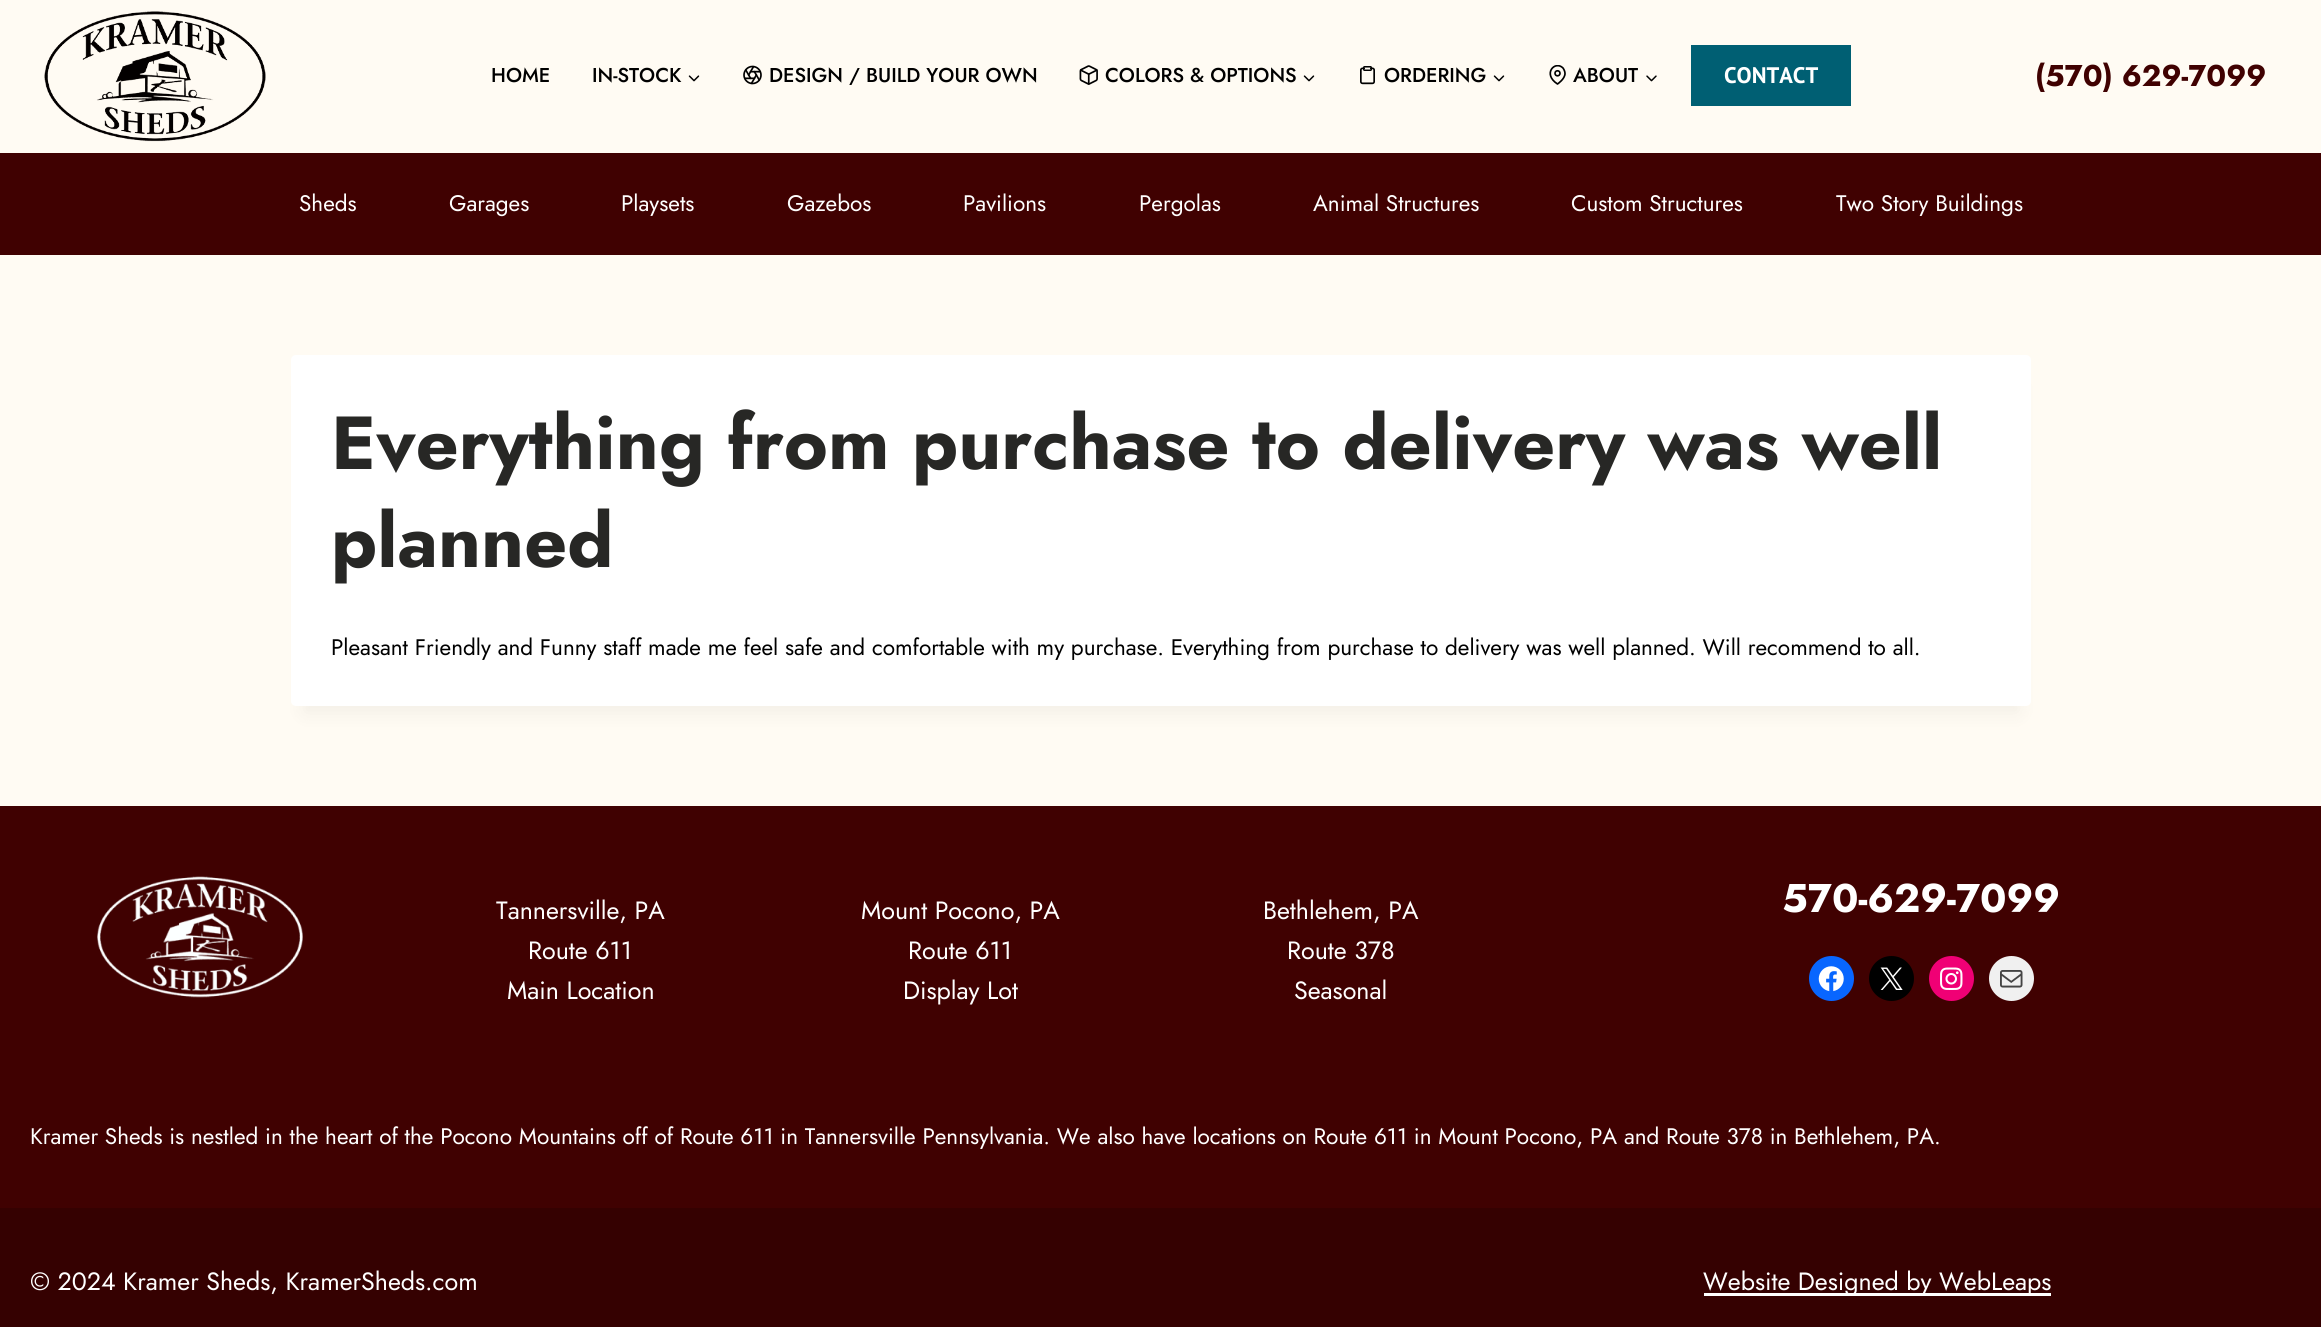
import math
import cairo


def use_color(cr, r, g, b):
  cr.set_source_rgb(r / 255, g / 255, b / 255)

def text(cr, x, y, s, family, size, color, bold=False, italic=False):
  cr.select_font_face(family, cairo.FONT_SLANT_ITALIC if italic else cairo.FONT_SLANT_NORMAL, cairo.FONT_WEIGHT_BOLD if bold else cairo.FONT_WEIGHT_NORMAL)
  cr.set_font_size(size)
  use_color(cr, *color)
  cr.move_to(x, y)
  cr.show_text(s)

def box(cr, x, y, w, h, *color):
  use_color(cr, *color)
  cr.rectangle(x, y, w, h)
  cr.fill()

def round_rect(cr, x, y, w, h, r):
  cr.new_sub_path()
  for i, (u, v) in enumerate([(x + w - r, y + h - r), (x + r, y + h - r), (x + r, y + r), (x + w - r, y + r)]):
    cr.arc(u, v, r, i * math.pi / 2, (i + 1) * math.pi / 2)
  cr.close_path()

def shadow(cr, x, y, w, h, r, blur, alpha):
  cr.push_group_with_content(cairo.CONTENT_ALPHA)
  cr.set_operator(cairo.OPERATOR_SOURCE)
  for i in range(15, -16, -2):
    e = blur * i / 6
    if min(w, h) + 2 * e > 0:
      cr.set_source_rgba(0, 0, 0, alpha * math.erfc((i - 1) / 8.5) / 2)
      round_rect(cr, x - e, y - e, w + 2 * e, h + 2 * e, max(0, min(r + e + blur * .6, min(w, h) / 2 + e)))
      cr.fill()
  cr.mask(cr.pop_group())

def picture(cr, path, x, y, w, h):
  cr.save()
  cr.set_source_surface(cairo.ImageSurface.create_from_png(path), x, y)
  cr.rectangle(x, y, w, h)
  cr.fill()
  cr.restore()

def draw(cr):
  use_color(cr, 255, 251, 243)
  cr.paint()
  picture(cr, "img_01.png", 44, 11, 222, 131)
  picture(cr, "img_02.png", 688, 75, 12, 7)
  picture(cr, "img_03.png", 743, 65, 19, 20)
  picture(cr, "img_04.png", 1079, 65, 19, 20)
  picture(cr, "img_02.png", 1303, 75, 12, 7)
  picture(cr, "img_05.png", 1360, 66, 15, 19)
  picture(cr, "img_02.png", 1493, 75, 12, 7)
  cr.save()
  cr.rectangle(1548, 65, 20, 20)
  cr.clip()
  cr.new_path()
  cr.move_to(1565, 73.5)
  cr.curve_to(1565, 79, 1557.5, 84, 1557.5, 84)
  cr.curve_to(1542, 74, 1555, 60, 1563, 68)
  cr.curve_to(1564, 69.5, 1565, 71.5, 1565, 73.5)
  cr.close_path()
  use_color(cr, 0, 0, 0)
  cr.set_line_width(1.7)
  cr.set_line_cap(cairo.LINE_CAP_ROUND)
  cr.set_line_join(cairo.LINE_JOIN_ROUND)
  cr.stroke()
  cr.restore()
  cr.arc(1557.5, 73.3, 2.5, 0, 2 * math.pi)
  use_color(cr, 0, 0, 0)
  cr.set_line_width(1.7)
  cr.stroke()
  picture(cr, "img_06.png", 1646, 75, 11, 7)
  box(cr, 1691, 45, 160, 61, 0, 95, 115)
  box(cr, 0, 153, 2321, 102, 64, 1, 1)
  use_color(cr, 0, 0, 0)
  shadow(cr, 304, 386, 1715, 327, 0, 9.5, 0.05)
  use_color(cr, 255, 255, 255)
  round_rect(cr, 291, 355, 1740, 351, 5)
  cr.fill()
  box(cr, 0, 806, 2321, 402, 64, 1, 1)
  picture(cr, "img_07.png", 97, 876, 206, 122)
  use_color(cr, 8, 102, 255)
  cr.arc(1831.5, 978.5, 22.5, 0, 2 * math.pi)
  cr.fill()
  picture(cr, "img_08.png", 1818, 966, 26, 26)
  use_color(cr, 0, 0, 0)
  cr.arc(1891.5, 978.5, 22.5, 0, 2 * math.pi)
  cr.fill()
  picture(cr, "img_09.png", 1880, 967, 23, 23)
  use_color(cr, 240, 0, 117)
  cr.arc(1951.5, 978.5, 22.5, 0, 2 * math.pi)
  cr.fill()
  picture(cr, "img_10.png", 1940, 967, 23, 23)
  use_color(cr, 240, 240, 240)
  cr.arc(2011.5, 978.5, 22.5, 0, 2 * math.pi)
  cr.fill()
  picture(cr, "img_11.png", 2000, 970, 23, 18)
  box(cr, 0, 1208, 2321, 119, 53, 1, 1)
  box(cr, 1704, 1293, 347, 3, 255, 255, 255)
  text(cr, 491, 82, "HOME", "Jost Medium", 20, (0, 0, 0))
  text(cr, 592, 82, "IN-STOCK", "Jost Medium", 20, (0, 0, 0))
  text(cr, 769, 82, "DESIGN / BUILD YOUR OWN", "Jost Medium", 20, (0, 0, 0))
  text(cr, 1105, 82, "COLORS & OPTIONS", "Jost Medium", 20, (0, 0, 0))
  text(cr, 1384, 82, "ORDERING", "Jost Medium", 20, (0, 0, 0))
  text(cr, 1573, 82, "ABOUT", "Jost Medium", 20, (0, 0, 0))
  text(cr, 1724, 83, "CONTACT", "PT Sans", 22.5, (255, 255, 255), bold=True)
  text(cr, 2035, 86, "(570) 629-7099", "Jost", 30, (64, 1, 1), bold=True)
  text(cr, 299, 211, "Sheds", "Jost", 22.5, (255, 255, 255))
  text(cr, 449, 211, "Garages", "Jost", 22.5, (255, 255, 255))
  text(cr, 621, 211, "Playsets", "Jost", 22.5, (255, 255, 255))
  text(cr, 787, 211, "Gazebos", "Jost", 22.5, (255, 255, 255))
  text(cr, 963, 211, "Pavilions", "Jost", 22.5, (255, 255, 255))
  text(cr, 1139, 211, "Pergolas", "Jost", 22.5, (255, 255, 255))
  text(cr, 1313, 211, "Animal Structures", "Jost", 22.5, (255, 255, 255))
  text(cr, 1571, 211, "Custom Structures", "Jost", 22.5, (255, 255, 255))
  text(cr, 1836, 211, "Two Story Buildings", "Jost", 22.5, (255, 255, 255))
  text(cr, 331, 469, "Everything from purchase to delivery was well", "Jost", 75, (39, 39, 37), bold=True)
  text(cr, 331, 567, "planned", "Jost", 75, (39, 39, 37), bold=True)
  text(cr, 331, 655, "Pleasant Friendly and Funny staff made me feel safe and comfortable with my purchase. Everything from purchase to delivery was well planned. Will recommend to all.", "Jost", 22.5, (0, 0, 0))
  text(cr, 496, 919, "Tannersville, PA", "Jost", 25, (255, 255, 255))
  text(cr, 528, 959, "Route 611", "Jost", 25, (255, 255, 255))
  text(cr, 507, 999, "Main Location", "Jost", 25, (255, 255, 255))
  text(cr, 861, 919, "Mount Pocono, PA", "Jost", 25, (255, 255, 255))
  text(cr, 908, 959, "Route 611", "Jost", 25, (255, 255, 255))
  text(cr, 903, 999, "Display Lot", "Jost", 25, (255, 255, 255))
  text(cr, 1263, 919, "Bethlehem, PA", "Jost", 25, (255, 255, 255))
  text(cr, 1287, 959, "Route 378", "Jost", 25, (255, 255, 255))
  text(cr, 1294, 999, "Seasonal", "Jost", 25, (255, 255, 255))
  text(cr, 1782, 912, "570-629-7099", "Jost", 40, (255, 255, 255), bold=True)
  text(cr, 30, 1144, "Kramer Sheds is nestled in the heart of the Pocono Mountains off of Route 611 in Tannersville Pennsylvania. We also have locations on Route 611 in Mount Pocono, PA and Route 378 in Bethlehem, PA.", "Jost", 22.5, (255, 255, 255))
  text(cr, 30, 1290, "© 2024 Kramer Sheds, KramerSheds.com", "Jost", 25, (255, 255, 255))
  text(cr, 1703, 1290, "Website Designed by WebLeaps", "Jost", 25, (255, 255, 255))


surface = cairo.ImageSurface(cairo.FORMAT_RGB24, 2321, 1327)
cr = cairo.Context(surface)
options = cairo.FontOptions()
options.set_hint_metrics(cairo.HINT_METRICS_OFF)
options.set_hint_style(cairo.HINT_STYLE_NONE)
cr.set_font_options(options)
cr.set_miter_limit(4)
draw(cr)
surface.write_to_png("out.png")
